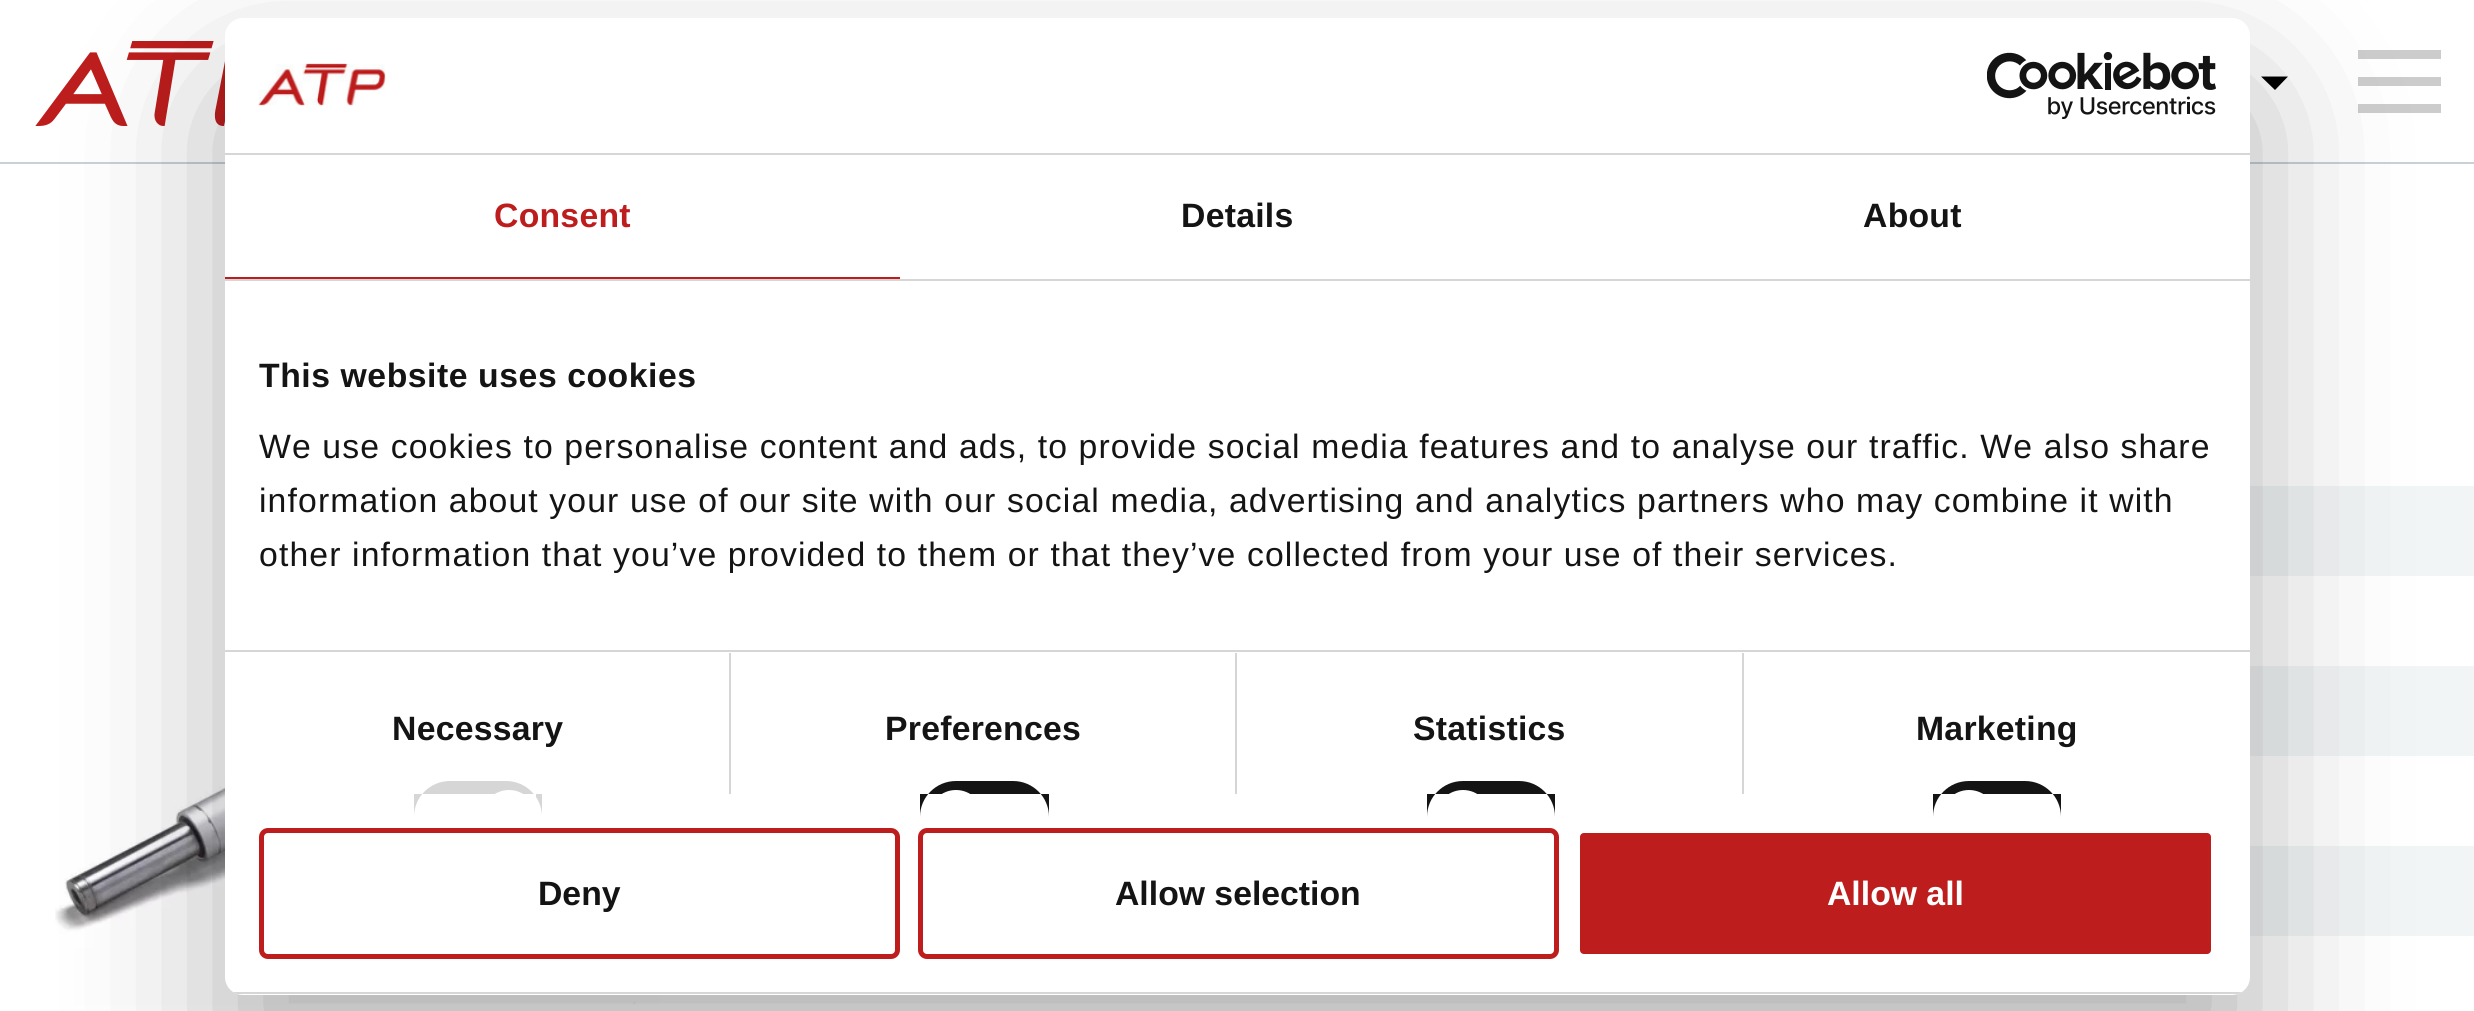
import math
import cairo


def use_color(cr, r, g, b):
  cr.set_source_rgb(r / 255, g / 255, b / 255)

def text(cr, x, y, s, family, size, color, bold=False, italic=False):
  cr.select_font_face(family, cairo.FONT_SLANT_ITALIC if italic else cairo.FONT_SLANT_NORMAL, cairo.FONT_WEIGHT_BOLD if bold else cairo.FONT_WEIGHT_NORMAL)
  cr.set_font_size(size)
  use_color(cr, *color)
  cr.move_to(x, y)
  cr.show_text(s)

def spaced_text(cr, x, y, s, letter, word):
  cr.move_to(x, y)
  for ch in s:
    cr.show_text(ch)
    cr.rel_move_to(letter + word * (ch == ' '), 0)

def box(cr, x, y, w, h, *color):
  use_color(cr, *color)
  cr.rectangle(x, y, w, h)
  cr.fill()

def round_rect(cr, x, y, w, h, r):
  cr.new_sub_path()
  for i, (u, v) in enumerate([(x + w - r, y + h - r), (x + r, y + h - r), (x + r, y + r), (x + w - r, y + r)]):
    cr.arc(u, v, r, i * math.pi / 2, (i + 1) * math.pi / 2)
  cr.close_path()

def shadow(cr, x, y, w, h, r, blur, alpha):
  cr.push_group_with_content(cairo.CONTENT_ALPHA)
  cr.set_operator(cairo.OPERATOR_SOURCE)
  for i in range(15, -16, -2):
    e = blur * i / 6
    if min(w, h) + 2 * e > 0:
      cr.set_source_rgba(0, 0, 0, alpha * math.erfc((i - 1) / 8.5) / 2)
      round_rect(cr, x - e, y - e, w + 2 * e, h + 2 * e, max(0, min(r + e + blur * .6, min(w, h) / 2 + e)))
      cr.fill()
  cr.mask(cr.pop_group())

def picture(cr, path, x, y, w, h):
  cr.save()
  cr.set_source_surface(cairo.ImageSurface.create_from_png(path), x, y)
  cr.rectangle(x, y, w, h)
  cr.fill()
  cr.restore()

def draw(cr):
  use_color(cr, 255, 255, 255)
  cr.paint()
  box(cr, 0, 162, 2474, 2, 199, 209, 215)
  picture(cr, "img_01.png", 35, 41, 190, 85)
  use_color(cr, 0, 0, 0)
  cr.new_path()
  cr.move_to(2261, 76.5)
  cr.line_to(2288, 76.5)
  cr.line_to(2275, 90)
  cr.close_path()
  cr.fill()
  box(cr, 2358, 77, 83, 9, 204, 204, 204)
  box(cr, 2358, 50, 83, 9, 204, 204, 204)
  box(cr, 2358, 104, 83, 9, 204, 204, 204)
  picture(cr, "img_04.png", 55, 586, 717, 419)
  box(cr, 2250, 486, 224, 90, 242, 245, 246)
  box(cr, 2250, 666, 224, 90, 242, 245, 246)
  box(cr, 2250, 846, 224, 90, 242, 245, 246)
  use_color(cr, 0, 0, 0)
  shadow(cr, 225, 90, 2025, 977, 18, 76.5, 0.3)
  use_color(cr, 255, 255, 255)
  round_rect(cr, 225, 18, 2025, 977, 18)
  cr.fill()
  box(cr, 225, 153, 2025, 2, 214, 214, 214)
  picture(cr, "img_02.png", 258, 63, 128, 43)
  picture(cr, "img_03.png", 1987, 52, 229, 67)
  box(cr, 225, 279, 2025, 2, 214, 214, 214)
  box(cr, 225, 277, 675, 2, 189, 29, 29)
  box(cr, 225, 650, 2025, 2, 214, 214, 214)
  box(cr, 729, 653, 2, 141, 214, 214, 214)
  cr.new_path()
  cr.move_to(450, 781)
  cr.line_to(506, 781)
  cr.curve_to(526, 781, 542, 797, 542, 817)
  cr.line_to(542, 794)
  cr.line_to(414, 794)
  cr.line_to(414, 817)
  cr.curve_to(414, 797, 430, 781, 450, 781)
  cr.close_path()
  cr.fill()
  use_color(cr, 255, 255, 255)
  cr.new_path()
  cr.move_to(509, 790)
  cr.curve_to(524, 790, 536, 802, 536, 817)
  cr.line_to(536, 794)
  cr.line_to(482, 794)
  cr.line_to(482, 817)
  cr.curve_to(482, 802, 494, 790, 509, 790)
  cr.close_path()
  cr.fill()
  box(cr, 1235, 653, 2, 141, 214, 214, 214)
  use_color(cr, 20, 20, 20)
  cr.new_path()
  cr.move_to(956, 781)
  cr.line_to(1013, 781)
  cr.curve_to(1033, 781, 1049, 797, 1049, 817)
  cr.line_to(1049, 794)
  cr.line_to(920, 794)
  cr.line_to(920, 817)
  cr.curve_to(920, 797, 936, 781, 956, 781)
  cr.close_path()
  cr.fill()
  use_color(cr, 255, 255, 255)
  cr.new_path()
  cr.move_to(956, 790)
  cr.curve_to(971, 790, 983, 802, 983, 817)
  cr.line_to(983, 794)
  cr.line_to(929, 794)
  cr.line_to(929, 817)
  cr.curve_to(929, 802, 941, 790, 956, 790)
  cr.close_path()
  cr.fill()
  box(cr, 1742, 653, 2, 141, 214, 214, 214)
  use_color(cr, 20, 20, 20)
  cr.new_path()
  cr.move_to(1463, 781)
  cr.line_to(1519, 781)
  cr.curve_to(1539, 781, 1555, 797, 1555, 817)
  cr.line_to(1555, 794)
  cr.line_to(1427, 794)
  cr.line_to(1427, 817)
  cr.curve_to(1427, 797, 1443, 781, 1463, 781)
  cr.close_path()
  cr.fill()
  use_color(cr, 255, 255, 255)
  cr.new_path()
  cr.move_to(1463, 790)
  cr.curve_to(1478, 790, 1490, 802, 1490, 817)
  cr.line_to(1490, 794)
  cr.line_to(1436, 794)
  cr.line_to(1436, 817)
  cr.curve_to(1436, 802, 1448, 790, 1463, 790)
  cr.close_path()
  cr.fill()
  use_color(cr, 20, 20, 20)
  cr.new_path()
  cr.move_to(1969, 781)
  cr.line_to(2025, 781)
  cr.curve_to(2045, 781, 2061, 797, 2061, 817)
  cr.line_to(2061, 794)
  cr.line_to(1933, 794)
  cr.line_to(1933, 817)
  cr.curve_to(1933, 797, 1949, 781, 1969, 781)
  cr.close_path()
  cr.fill()
  use_color(cr, 255, 255, 255)
  cr.new_path()
  cr.move_to(1969, 790)
  cr.curve_to(1984, 790, 1996, 802, 1996, 817)
  cr.line_to(1996, 794)
  cr.line_to(1942, 794)
  cr.line_to(1942, 817)
  cr.curve_to(1942, 802, 1954, 790, 1969, 790)
  cr.close_path()
  cr.fill()
  cr.save()
  round_rect(cr, 225, 18, 2025, 977, 18)
  cr.clip()
  box(cr, 225, 992, 2025, 2, 214, 214, 214)
  cr.restore()
  round_rect(cr, 261.5, 830.5, 636, 126, 6.5)
  use_color(cr, 189, 29, 29)
  cr.set_line_width(5)
  cr.stroke()
  round_rect(cr, 920.5, 830.5, 636, 126, 6.5)
  cr.stroke()
  round_rect(cr, 1577.5, 830.5, 636, 126, 6.5)
  cr.fill_preserve()
  use_color(cr, 255, 255, 255)
  cr.stroke()
  cr.select_font_face("Liberation Sans", cairo.FONT_SLANT_NORMAL, cairo.FONT_WEIGHT_BOLD)
  cr.set_font_size(33.75)
  use_color(cr, 189, 29, 29)
  spaced_text(cr, 494, 227, "Consent", 0.25, 0)
  use_color(cr, 20, 20, 20)
  spaced_text(cr, 1181, 227, "Details", 0.25, 0)
  spaced_text(cr, 1863, 227, "About", 0.25, 0)
  spaced_text(cr, 259, 387, "This website uses cookies", 0.55, 0)
  cr.select_font_face("Liberation Sans")
  spaced_text(cr, 259, 458, "We use cookies to personalise content and ads, to provide social media features and to analyse our traffic. We also share", 1.12, 0)
  spaced_text(cr, 259, 512, "information about your use of our site with our social media, advertising and analytics partners who may combine it with", 1.12, 0)
  spaced_text(cr, 259, 566, "other information that you’ve provided to them or that they’ve collected from your use of their services.", 1.12, 0)
  cr.select_font_face("Liberation Sans", cairo.FONT_SLANT_NORMAL, cairo.FONT_WEIGHT_BOLD)
  spaced_text(cr, 392, 740, "Necessary", 0.25, 0)
  spaced_text(cr, 885, 740, "Preferences", 0.25, 0)
  spaced_text(cr, 1413, 740, "Statistics", 0.25, 0)
  spaced_text(cr, 1916, 740, "Marketing", 0.25, 0)
  text(cr, 538, 905, "Deny", "Liberation Sans", 33.75, (20, 20, 20), bold=True)
  text(cr, 1115, 905, "Allow selection", "Liberation Sans", 33.75, (20, 20, 20), bold=True)
  text(cr, 1827, 905, "Allow all", "Liberation Sans", 33.75, (255, 255, 255), bold=True)


surface = cairo.ImageSurface(cairo.FORMAT_RGB24, 2474, 1011)
cr = cairo.Context(surface)
options = cairo.FontOptions()
options.set_hint_metrics(cairo.HINT_METRICS_OFF)
options.set_hint_style(cairo.HINT_STYLE_NONE)
cr.set_font_options(options)
cr.set_miter_limit(4)
draw(cr)
surface.write_to_png("out.png")
